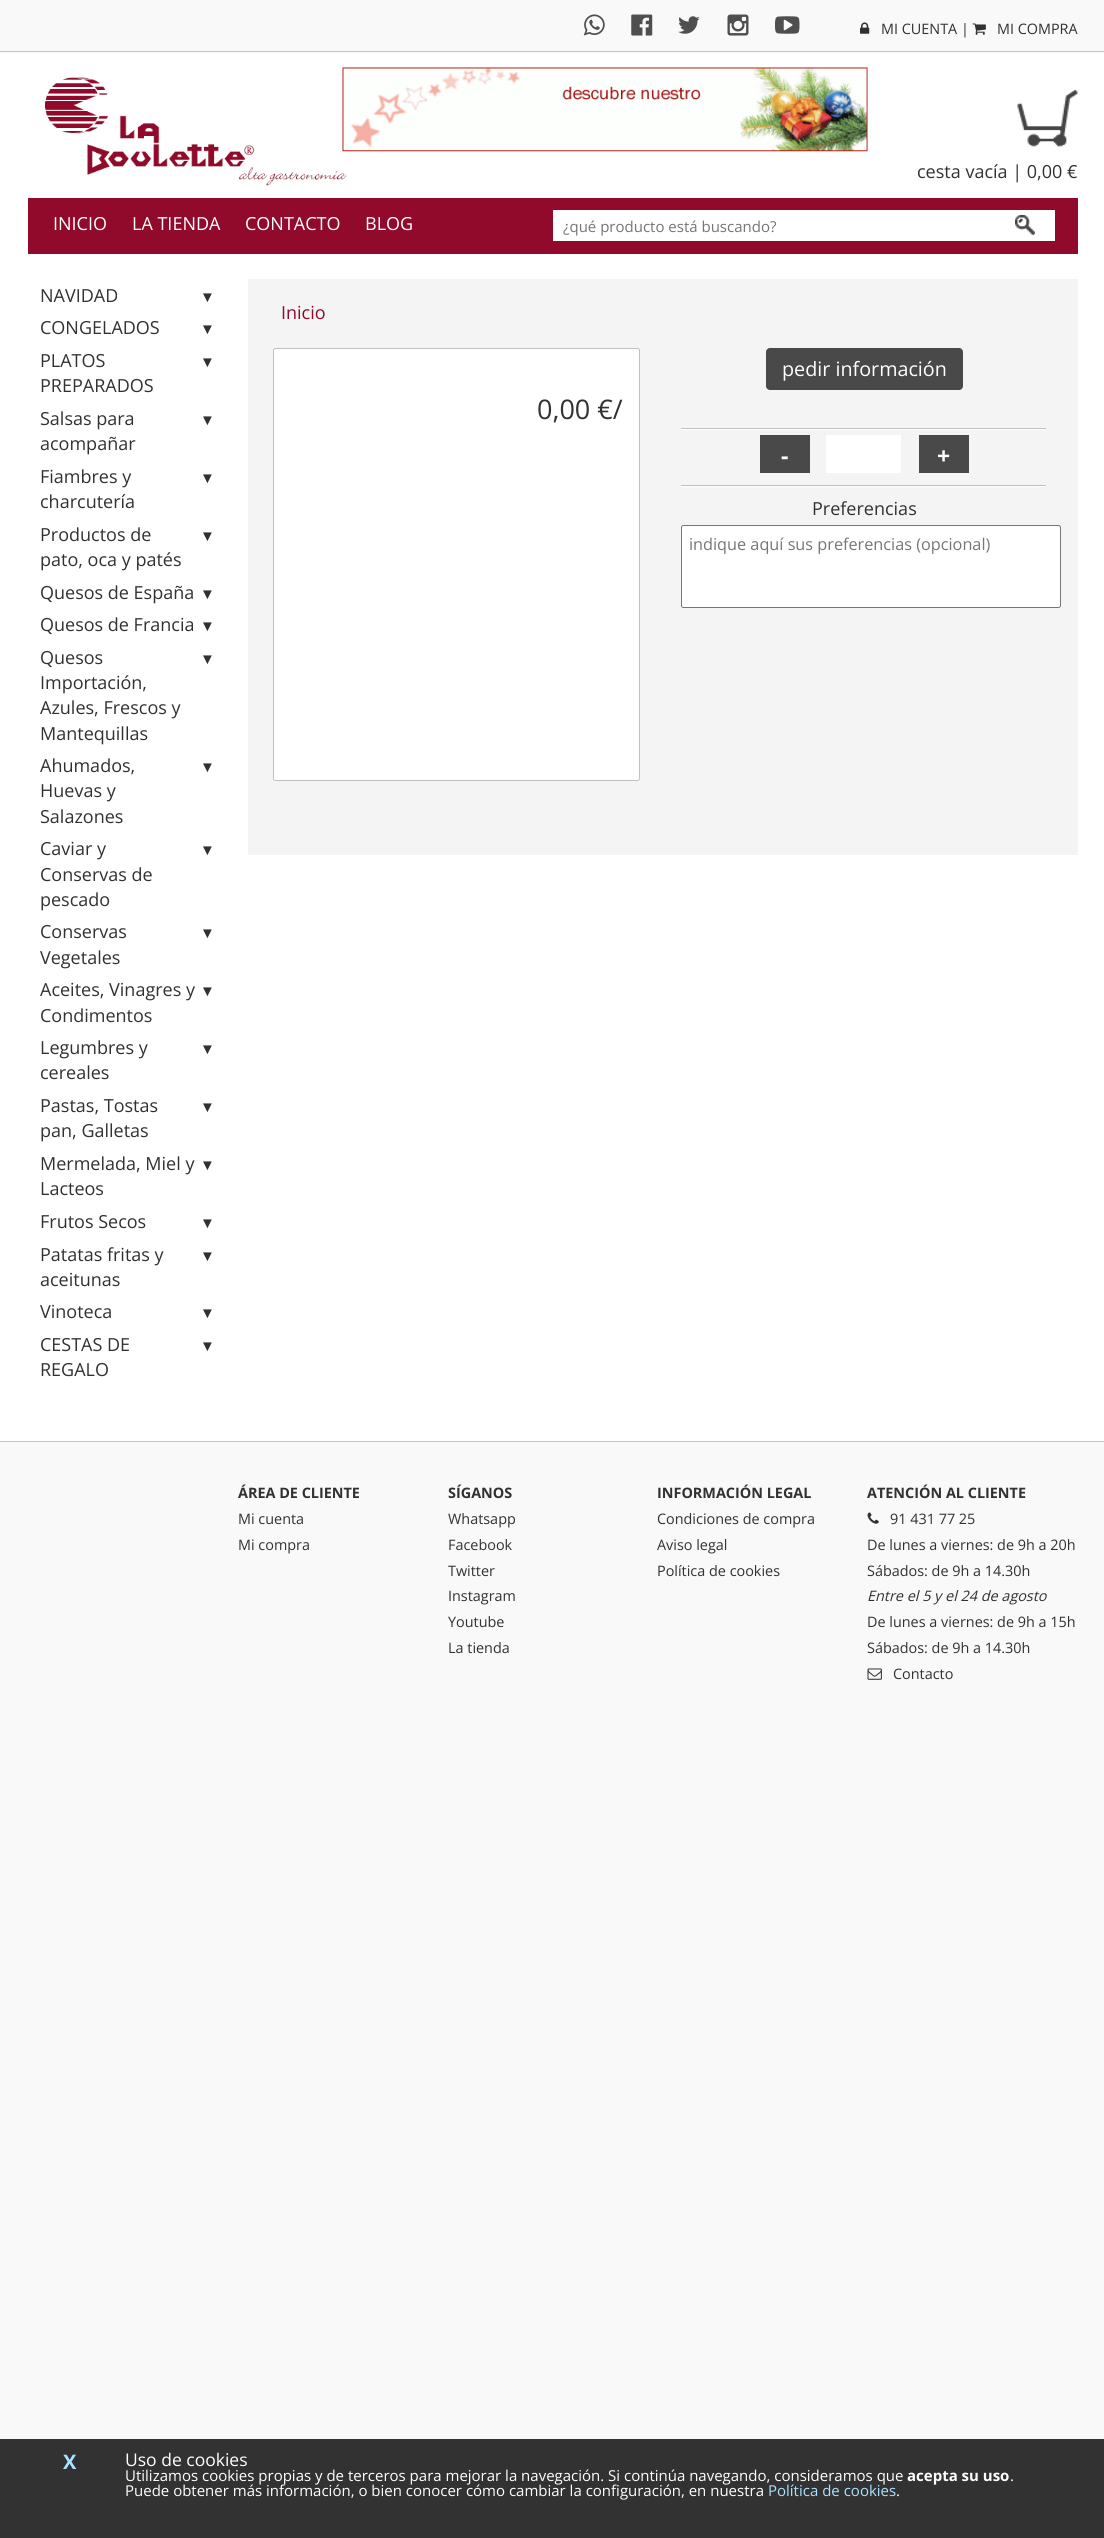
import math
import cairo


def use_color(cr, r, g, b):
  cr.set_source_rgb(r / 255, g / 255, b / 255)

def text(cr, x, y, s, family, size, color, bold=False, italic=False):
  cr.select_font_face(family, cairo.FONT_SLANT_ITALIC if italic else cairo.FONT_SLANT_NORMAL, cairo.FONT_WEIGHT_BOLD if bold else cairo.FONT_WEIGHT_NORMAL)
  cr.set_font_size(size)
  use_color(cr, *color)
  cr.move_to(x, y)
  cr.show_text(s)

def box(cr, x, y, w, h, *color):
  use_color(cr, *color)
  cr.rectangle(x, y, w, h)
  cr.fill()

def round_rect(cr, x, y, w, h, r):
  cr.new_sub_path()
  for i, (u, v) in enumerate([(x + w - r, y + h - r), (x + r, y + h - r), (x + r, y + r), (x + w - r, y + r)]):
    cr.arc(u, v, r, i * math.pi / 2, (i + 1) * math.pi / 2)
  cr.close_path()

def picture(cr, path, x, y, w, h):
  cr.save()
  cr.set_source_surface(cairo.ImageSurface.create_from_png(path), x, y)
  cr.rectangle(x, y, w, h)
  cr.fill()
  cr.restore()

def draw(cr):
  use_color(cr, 249, 249, 249)
  cr.paint()
  box(cr, 0, 51, 1104, 1, 197, 197, 197)
  picture(cr, "img_01.png", 583, 14, 22, 22)
  picture(cr, "img_02.png", 631, 14, 22, 22)
  picture(cr, "img_03.png", 678, 16, 22, 18)
  picture(cr, "img_04.png", 727, 14, 22, 22)
  picture(cr, "img_05.png", 775, 16, 25, 18)
  picture(cr, "img_06.png", 860, 22, 10, 12)
  picture(cr, "img_07.png", 972, 23, 14, 12)
  box(cr, 0, 53, 1104, 1388, 255, 255, 255)
  picture(cr, "img_08.png", 45, 77, 302, 109)
  picture(cr, "img_09.png", 342, 67, 526, 85)
  picture(cr, "img_10.png", 1017, 89, 61, 58)
  box(cr, 28, 198, 1050, 56, 145, 10, 43)
  box(cr, 553, 210, 502, 31, 255, 255, 255)
  picture(cr, "img_11.png", 1015, 215, 20, 20)
  box(cr, 248, 279, 830, 576, 244, 244, 244)
  use_color(cr, 255, 255, 255)
  round_rect(cr, 273.5, 348.5, 366, 432, 2)
  cr.fill_preserve()
  use_color(cr, 192, 192, 192)
  cr.set_line_width(1)
  cr.stroke()
  use_color(cr, 73, 73, 73)
  round_rect(cr, 766, 348, 197, 42, 4)
  cr.fill()
  box(cr, 681, 429, 365, 1, 255, 255, 255)
  box(cr, 681, 428, 365, 1, 192, 192, 192)
  box(cr, 760, 435, 50, 38, 73, 73, 73)
  box(cr, 826, 435, 75, 38, 255, 255, 255)
  box(cr, 919, 435, 50, 38, 73, 73, 73)
  box(cr, 681, 486, 365, 1, 255, 255, 255)
  box(cr, 681, 485, 365, 1, 192, 192, 192)
  use_color(cr, 255, 255, 255)
  round_rect(cr, 681.5, 525.5, 379, 82, 2)
  cr.fill_preserve()
  use_color(cr, 118, 118, 118)
  cr.stroke()
  box(cr, 0, 1441, 1104, 1, 197, 197, 197)
  picture(cr, "img_12.png", 867, 1512, 12, 12)
  picture(cr, "img_13.png", 867, 1668, 15, 12)
  box(cr, 0, 2439, 1104, 99, 50, 50, 50)
  text(cr, 881, 34, "MI CUENTA |", "Open Sans", 14.4, (49, 49, 49))
  text(cr, 997, 34, "MI COMPRA", "Open Sans", 14.4, (49, 49, 49))
  text(cr, 917, 178, "cesta vacía | 0,00 €", "Open Sans", 18, (49, 49, 49))
  text(cr, 53, 230, "INICIO", "Open Sans", 18, (255, 255, 255))
  text(cr, 132, 230, "LA TIENDA", "Open Sans", 18, (255, 255, 255))
  text(cr, 245, 230, "CONTACTO", "Open Sans", 18, (255, 255, 255))
  text(cr, 365, 230, "BLOG", "Open Sans", 18, (255, 255, 255))
  text(cr, 563, 232, "¿qué producto está buscando?", "Open Sans", 15, (117, 117, 117))
  text(cr, 40, 302, "NAVIDAD", "Open Sans", 18, (49, 49, 49))
  text(cr, 200, 302, "▼", "Liberation Sans", 15, (49, 49, 49))
  text(cr, 40, 334, "CONGELADOS", "Open Sans", 18, (49, 49, 49))
  text(cr, 200, 334, "▼", "Liberation Sans", 15, (49, 49, 49))
  text(cr, 40, 367, "PLATOS", "Open Sans", 18, (49, 49, 49))
  text(cr, 200, 367, "▼", "Liberation Sans", 15, (49, 49, 49))
  text(cr, 40, 392, "PREPARADOS", "Open Sans", 18, (49, 49, 49))
  text(cr, 40, 425, "Salsas para", "Open Sans", 18, (49, 49, 49))
  text(cr, 200, 425, "▼", "Liberation Sans", 15, (49, 49, 49))
  text(cr, 40, 450, "acompañar", "Open Sans", 18, (49, 49, 49))
  text(cr, 40, 483, "Fiambres y", "Open Sans", 18, (49, 49, 49))
  text(cr, 200, 483, "▼", "Liberation Sans", 15, (49, 49, 49))
  text(cr, 40, 508, "charcutería", "Open Sans", 18, (49, 49, 49))
  text(cr, 40, 541, "Productos de", "Open Sans", 18, (49, 49, 49))
  text(cr, 200, 541, "▼", "Liberation Sans", 15, (49, 49, 49))
  text(cr, 40, 566, "pato, oca y patés", "Open Sans", 18, (49, 49, 49))
  text(cr, 40, 599, "Quesos de España", "Open Sans", 18, (49, 49, 49))
  text(cr, 200, 599, "▼", "Liberation Sans", 15, (49, 49, 49))
  text(cr, 40, 631, "Quesos de Francia", "Open Sans", 18, (49, 49, 49))
  text(cr, 200, 631, "▼", "Liberation Sans", 15, (49, 49, 49))
  text(cr, 40, 664, "Quesos", "Open Sans", 18, (49, 49, 49))
  text(cr, 200, 664, "▼", "Liberation Sans", 15, (49, 49, 49))
  text(cr, 40, 689, "Importación,", "Open Sans", 18, (49, 49, 49))
  text(cr, 40, 714, "Azules, Frescos y", "Open Sans", 18, (49, 49, 49))
  text(cr, 40, 740, "Mantequillas", "Open Sans", 18, (49, 49, 49))
  text(cr, 40, 772, "Ahumados,", "Open Sans", 18, (49, 49, 49))
  text(cr, 200, 772, "▼", "Liberation Sans", 15, (49, 49, 49))
  text(cr, 40, 797, "Huevas y", "Open Sans", 18, (49, 49, 49))
  text(cr, 40, 823, "Salazones", "Open Sans", 18, (49, 49, 49))
  text(cr, 40, 855, "Caviar y", "Open Sans", 18, (49, 49, 49))
  text(cr, 200, 855, "▼", "Liberation Sans", 15, (49, 49, 49))
  text(cr, 40, 881, "Conservas de", "Open Sans", 18, (49, 49, 49))
  text(cr, 40, 906, "pescado", "Open Sans", 18, (49, 49, 49))
  text(cr, 40, 938, "Conservas", "Open Sans", 18, (49, 49, 49))
  text(cr, 200, 938, "▼", "Liberation Sans", 15, (49, 49, 49))
  text(cr, 40, 964, "Vegetales", "Open Sans", 18, (49, 49, 49))
  text(cr, 40, 996, "Aceites, Vinagres y", "Open Sans", 18, (49, 49, 49))
  text(cr, 200, 996, "▼", "Liberation Sans", 15, (49, 49, 49))
  text(cr, 40, 1022, "Condimentos", "Open Sans", 18, (49, 49, 49))
  text(cr, 40, 1054, "Legumbres y", "Open Sans", 18, (49, 49, 49))
  text(cr, 200, 1054, "▼", "Liberation Sans", 15, (49, 49, 49))
  text(cr, 40, 1079, "cereales", "Open Sans", 18, (49, 49, 49))
  text(cr, 40, 1112, "Pastas, Tostas", "Open Sans", 18, (49, 49, 49))
  text(cr, 200, 1112, "▼", "Liberation Sans", 15, (49, 49, 49))
  text(cr, 40, 1137, "pan, Galletas", "Open Sans", 18, (49, 49, 49))
  text(cr, 40, 1170, "Mermelada, Miel y", "Open Sans", 18, (49, 49, 49))
  text(cr, 200, 1170, "▼", "Liberation Sans", 15, (49, 49, 49))
  text(cr, 40, 1195, "Lacteos", "Open Sans", 18, (49, 49, 49))
  text(cr, 40, 1228, "Frutos Secos", "Open Sans", 18, (49, 49, 49))
  text(cr, 200, 1228, "▼", "Liberation Sans", 15, (49, 49, 49))
  text(cr, 40, 1261, "Patatas fritas y", "Open Sans", 18, (49, 49, 49))
  text(cr, 200, 1261, "▼", "Liberation Sans", 15, (49, 49, 49))
  text(cr, 40, 1286, "aceitunas", "Open Sans", 18, (49, 49, 49))
  text(cr, 40, 1318, "Vinoteca", "Open Sans", 18, (49, 49, 49))
  text(cr, 200, 1318, "▼", "Liberation Sans", 15, (49, 49, 49))
  text(cr, 40, 1351, "CESTAS DE", "Open Sans", 18, (49, 49, 49))
  text(cr, 200, 1351, "▼", "Liberation Sans", 15, (49, 49, 49))
  text(cr, 40, 1376, "REGALO", "Open Sans", 18, (49, 49, 49))
  text(cr, 281, 319, "Inicio", "Open Sans", 18, (145, 10, 43))
  text(cr, 537, 419, "0,00 €/", "Open Sans", 27, (49, 49, 49))
  text(cr, 782, 376, "pedir información", "Open Sans", 19.75, (255, 255, 255))
  text(cr, 781, 464, "-", "Open Sans", 23, (255, 255, 255), bold=True)
  text(cr, 937, 464, "+", "Open Sans", 23, (255, 255, 255), bold=True)
  text(cr, 812, 515, "Preferencias", "Open Sans", 18, (49, 49, 49))
  text(cr, 689, 550, "indique aquí sus preferencias (opcional)", "Open Sans", 16.25, (117, 117, 117))
  text(cr, 238, 1498, "ÁREA DE CLIENTE", "Open Sans", 14.4, (49, 49, 49), bold=True)
  text(cr, 238, 1524, "Mi cuenta", "Open Sans", 14.4, (49, 49, 49))
  text(cr, 238, 1550, "Mi compra", "Open Sans", 14.4, (49, 49, 49))
  text(cr, 448, 1498, "SÍGANOS", "Open Sans", 14.4, (49, 49, 49), bold=True)
  text(cr, 448, 1524, "Whatsapp", "Open Sans", 14.4, (49, 49, 49))
  text(cr, 448, 1550, "Facebook", "Open Sans", 14.4, (49, 49, 49))
  text(cr, 448, 1576, "Twitter", "Open Sans", 14.4, (49, 49, 49))
  text(cr, 448, 1601, "Instagram", "Open Sans", 14.4, (49, 49, 49))
  text(cr, 448, 1627, "Youtube", "Open Sans", 14.4, (49, 49, 49))
  text(cr, 448, 1653, "La tienda", "Open Sans", 14.4, (49, 49, 49))
  text(cr, 657, 1498, "INFORMACIÓN LEGAL", "Open Sans", 14.4, (49, 49, 49), bold=True)
  text(cr, 657, 1524, "Condiciones de compra", "Open Sans", 14.4, (49, 49, 49))
  text(cr, 657, 1550, "Aviso legal", "Open Sans", 14.4, (49, 49, 49))
  text(cr, 657, 1576, "Política de cookies", "Open Sans", 14.4, (49, 49, 49))
  text(cr, 867, 1498, "ATENCIÓN AL CLIENTE", "Open Sans", 14.4, (49, 49, 49), bold=True)
  text(cr, 890, 1524, "91 431 77 25", "Open Sans", 14.4, (49, 49, 49))
  text(cr, 867, 1550, "De lunes a viernes: de 9h a 20h", "Open Sans", 14.4, (49, 49, 49))
  text(cr, 867, 1576, "Sábados: de 9h a 14.30h", "Open Sans", 14.4, (49, 49, 49))
  text(cr, 867, 1601, "Entre el 5 y el 24 de agosto", "Open Sans", 14.4, (49, 49, 49), italic=True)
  text(cr, 867, 1627, "De lunes a viernes: de 9h a 15h", "Open Sans", 14.4, (49, 49, 49))
  text(cr, 867, 1653, "Sábados: de 9h a 14.30h", "Open Sans", 14.4, (49, 49, 49))
  text(cr, 893, 1679, "Contacto", "Open Sans", 14.4, (49, 49, 49))
  text(cr, 63, 2469, "X", "Open Sans", 20, (170, 227, 255), bold=True)
  text(cr, 125, 2466, "Uso de cookies", "Open Sans", 17.5, (255, 255, 255))
  text(cr, 125, 2481, "Utilizamos cookies propias y de terceros para mejorar la navegación. Si continúa navegando, consideramos que", "Open Sans", 15, (255, 255, 255))
  text(cr, 907, 2481, "acepta su uso", "Open Sans", 15, (255, 255, 255), bold=True)
  text(cr, 1010, 2481, ".", "Open Sans", 15, (255, 255, 255))
  text(cr, 125, 2496, "Puede obtener más información, o bien conocer cómo cambiar la configuración, en nuestra", "Open Sans", 15, (255, 255, 255))
  text(cr, 768, 2496, "Política de cookies", "Open Sans", 15, (170, 227, 255))
  text(cr, 896, 2496, ".", "Open Sans", 15, (255, 255, 255))


surface = cairo.ImageSurface(cairo.FORMAT_RGB24, 1104, 2538)
cr = cairo.Context(surface)
options = cairo.FontOptions()
options.set_hint_metrics(cairo.HINT_METRICS_OFF)
options.set_hint_style(cairo.HINT_STYLE_NONE)
cr.set_font_options(options)
cr.set_miter_limit(4)
draw(cr)
surface.write_to_png("out.png")
